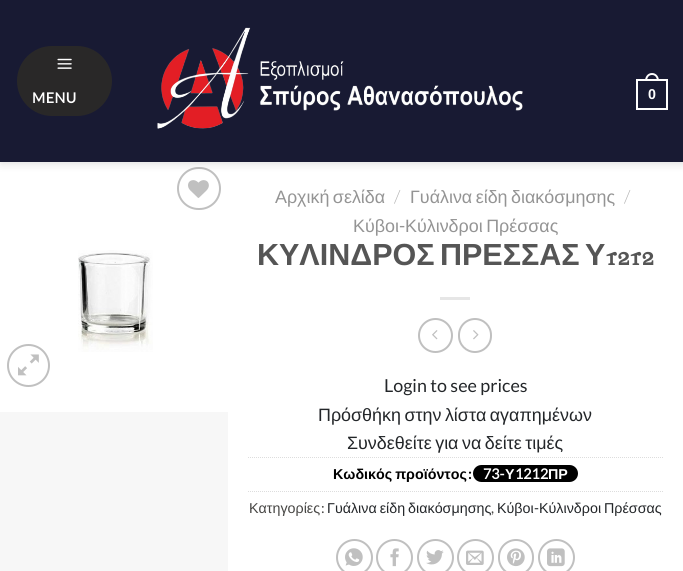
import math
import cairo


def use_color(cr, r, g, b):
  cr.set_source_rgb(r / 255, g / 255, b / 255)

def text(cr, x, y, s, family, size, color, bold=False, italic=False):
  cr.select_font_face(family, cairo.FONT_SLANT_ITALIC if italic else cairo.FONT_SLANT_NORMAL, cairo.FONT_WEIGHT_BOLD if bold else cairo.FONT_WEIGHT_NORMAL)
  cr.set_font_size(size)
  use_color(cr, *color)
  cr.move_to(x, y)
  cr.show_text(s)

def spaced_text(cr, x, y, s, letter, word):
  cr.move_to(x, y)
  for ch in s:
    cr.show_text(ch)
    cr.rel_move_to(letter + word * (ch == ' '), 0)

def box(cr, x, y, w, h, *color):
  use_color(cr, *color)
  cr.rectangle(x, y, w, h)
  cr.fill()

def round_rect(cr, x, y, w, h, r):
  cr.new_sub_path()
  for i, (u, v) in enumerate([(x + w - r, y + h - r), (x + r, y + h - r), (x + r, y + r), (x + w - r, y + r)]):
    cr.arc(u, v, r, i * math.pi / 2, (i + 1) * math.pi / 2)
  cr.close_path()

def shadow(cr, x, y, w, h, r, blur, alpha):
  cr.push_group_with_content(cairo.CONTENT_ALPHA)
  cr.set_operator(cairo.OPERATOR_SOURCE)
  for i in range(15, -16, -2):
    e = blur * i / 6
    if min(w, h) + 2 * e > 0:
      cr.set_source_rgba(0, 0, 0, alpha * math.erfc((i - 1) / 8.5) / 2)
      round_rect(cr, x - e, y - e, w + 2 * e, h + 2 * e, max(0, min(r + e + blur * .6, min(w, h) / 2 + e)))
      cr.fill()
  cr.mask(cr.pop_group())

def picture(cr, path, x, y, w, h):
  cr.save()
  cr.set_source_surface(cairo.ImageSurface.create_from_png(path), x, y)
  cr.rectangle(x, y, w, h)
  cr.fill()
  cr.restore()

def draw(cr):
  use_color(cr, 247, 247, 247)
  cr.paint()
  box(cr, 0, 162, 228, 250, 255, 255, 255)
  round_rect(cr, 178, 168, 42, 41, 20.5)
  use_color(cr, 192, 192, 192)
  cr.stroke()
  box(cr, 228, 162, 455, 409, 255, 255, 255)
  use_color(cr, 0, 0, 0)
  shadow(cr, 1, 1, 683, 162, 0, 5, 0.15)
  box(cr, 0, 0, 683, 162, 24, 26, 51)
  use_color(cr, 41, 40, 40)
  round_rect(cr, 17, 46, 95, 70, 35)
  cr.fill()
  picture(cr, "img_01.png", 57, 58, 15, 11)
  picture(cr, "img_02.png", 157, 27, 366, 102)
  cr.rectangle(637, 80, 30, 29)
  use_color(cr, 255, 255, 255)
  cr.stroke()
  cr.set_fill_rule(cairo.FILL_RULE_EVEN_ODD)
  cr.new_path()
  cr.move_to(652, 73)
  cr.curve_to(656.5, 73, 659, 77, 659, 81)
  cr.line_to(645, 81)
  cr.curve_to(645, 77, 647.5, 73, 652, 73)
  cr.close_path()
  cr.move_to(652, 75)
  cr.curve_to(655.5, 75, 657, 78, 657, 81)
  cr.line_to(647, 81)
  cr.curve_to(647, 78, 648.5, 75, 652, 75)
  cr.close_path()
  cr.fill()
  picture(cr, "img_03.png", 188, 180, 21, 18)
  picture(cr, "img_04.png", 78, 250, 75, 102)
  cr.arc(28.5, 365.5, 20.5, 0, 2 * math.pi)
  use_color(cr, 192, 192, 192)
  cr.stroke()
  picture(cr, "img_05.png", 18, 354, 21, 22)
  box(cr, 440, 297, 30, 3, 230, 230, 230)
  cr.arc(435.5, 335.5, 16.5, 0, 2 * math.pi)
  use_color(cr, 192, 192, 192)
  cr.stroke()
  picture(cr, "img_06.png", 432, 330, 6, 10)
  round_rect(cr, 459, 319, 32, 33, 16)
  cr.stroke()
  picture(cr, "img_07.png", 473, 330, 6, 10)
  cr.new_path()
  cr.move_to(248, 457.5)
  cr.line_to(663, 457.5)
  use_color(cr, 221, 221, 221)
  cr.set_line_width(1)
  cr.set_dash([1, 1])
  cr.stroke()
  use_color(cr, 0, 0, 0)
  round_rect(cr, 473, 465, 105, 17, 8.5)
  cr.fill()
  cr.new_path()
  cr.move_to(248, 491.5)
  cr.line_to(663, 491.5)
  use_color(cr, 221, 221, 221)
  cr.stroke()
  cr.arc(354.5, 557.5, 17.5, 0, 2 * math.pi)
  use_color(cr, 192, 192, 192)
  cr.set_line_width(2)
  cr.set_dash([])
  cr.stroke()
  picture(cr, "img_08.png", 345, 548, 18, 18)
  cr.arc(394.5, 557.5, 17.5, 0, 2 * math.pi)
  cr.stroke()
  picture(cr, "img_09.png", 390, 548, 9, 19)
  cr.arc(435.5, 557.5, 17.5, 0, 2 * math.pi)
  cr.stroke()
  picture(cr, "img_10.png", 426, 550, 18, 15)
  cr.arc(475.5, 557.5, 17.5, 0, 2 * math.pi)
  cr.stroke()
  picture(cr, "img_11.png", 466, 550, 18, 15)
  round_rect(cr, 499, 540, 34, 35, 17)
  cr.stroke()
  picture(cr, "img_12.png", 507, 548, 18, 19)
  cr.arc(556.5, 557.5, 17.5, 0, 2 * math.pi)
  cr.stroke()
  picture(cr, "img_13.png", 547, 548, 18, 19)
  cr.select_font_face("Lato", cairo.FONT_SLANT_NORMAL, cairo.FONT_WEIGHT_BOLD)
  cr.set_font_size(14.3)
  use_color(cr, 255, 255, 255)
  spaced_text(cr, 32, 103, "MENU", 0.5, 0)
  text(cr, 648, 99, "0", "Liberation Sans", 14.3, (255, 255, 255), bold=True)
  cr.select_font_face("Liberation Sans")
  cr.set_font_size(17.9)
  use_color(cr, 148, 148, 148)
  spaced_text(cr, 275, 203, "Αρχική σελίδα", 0, -1.5)
  text(cr, 394, 203, "/", "Lato Light", 17.9, (178, 178, 178))
  cr.select_font_face("Liberation Sans")
  use_color(cr, 148, 148, 148)
  spaced_text(cr, 410, 203, "Γυάλινα είδη διακόσμησης", 0, -1.5)
  text(cr, 624, 203, "/", "Lato Light", 17.9, (178, 178, 178))
  text(cr, 353, 232, "Κύβοι", "Liberation Sans", 17.9, (148, 148, 148))
  text(cr, 399, 232, "-", "Lato", 17.9, (148, 148, 148))
  cr.select_font_face("Liberation Sans")
  spaced_text(cr, 405, 232, "Κύλινδροι Πρέσσας", 0, -1.5)
  cr.select_font_face("Liberation Sans", cairo.FONT_SLANT_NORMAL, cairo.FONT_WEIGHT_BOLD)
  cr.set_font_size(30.5)
  use_color(cr, 85, 85, 85)
  spaced_text(cr, 257, 265, "ΚΥΛΙΝΔΡΟΣ ΠΡΕΣΣΑΣ Υ", 0, -3)
  text(cr, 605, 265, "1212", "Lancelot", 30.5, (85, 85, 85), bold=True)
  text(cr, 384, 392, "Login to see prices", "Lato", 17.9, (35, 38, 41))
  cr.select_font_face("Liberation Sans")
  spaced_text(cr, 318, 421, "Πρόσθήκη στην λίστα αγαπημένων", 0, -1.5)
  spaced_text(cr, 347, 449, "Συνδεθείτε για να δείτε τιμές", 0, -1.5)
  cr.select_font_face("Liberation Sans", cairo.FONT_SLANT_NORMAL, cairo.FONT_WEIGHT_BOLD)
  cr.set_font_size(14.3)
  use_color(cr, 0, 0, 0)
  spaced_text(cr, 333, 479, "Κωδικός προϊόντος", 0, -1)
  text(cr, 468, 479, ":", "Lato", 14.3, (0, 0, 0), bold=True)
  text(cr, 483, 479, "73-", "Lato", 14.3, (255, 255, 255), bold=True)
  text(cr, 505, 479, "Υ", "Liberation Sans", 14.3, (255, 255, 255), bold=True)
  text(cr, 515, 479, "1212", "Lato", 14.3, (255, 255, 255), bold=True)
  text(cr, 548, 479, "ΠΡ", "Liberation Sans", 14.3, (255, 255, 255), bold=True)
  text(cr, 249, 513, "Κατηγορίες", "Liberation Sans", 14.3, (70, 69, 67))
  text(cr, 321, 513, ":", "Lato", 14.3, (70, 69, 67))
  cr.select_font_face("Liberation Sans")
  use_color(cr, 35, 38, 41)
  spaced_text(cr, 327, 513, "Γυάλινα είδη διακόσμησης", 0, -1)
  text(cr, 497, 513, "Κύβοι", "Liberation Sans", 14.3, (35, 38, 41))
  text(cr, 534, 513, "-", "Lato", 14.3, (35, 38, 41))
  cr.select_font_face("Liberation Sans")
  spaced_text(cr, 539, 513, "Κύλινδροι Πρέσσας", 0, -1)
  text(cr, 491, 513, ",", "Lato", 14.3, (70, 69, 67))


surface = cairo.ImageSurface(cairo.FORMAT_RGB24, 683, 571)
cr = cairo.Context(surface)
options = cairo.FontOptions()
options.set_hint_metrics(cairo.HINT_METRICS_OFF)
options.set_hint_style(cairo.HINT_STYLE_NONE)
cr.set_font_options(options)
cr.set_miter_limit(4)
draw(cr)
surface.write_to_png("out.png")
